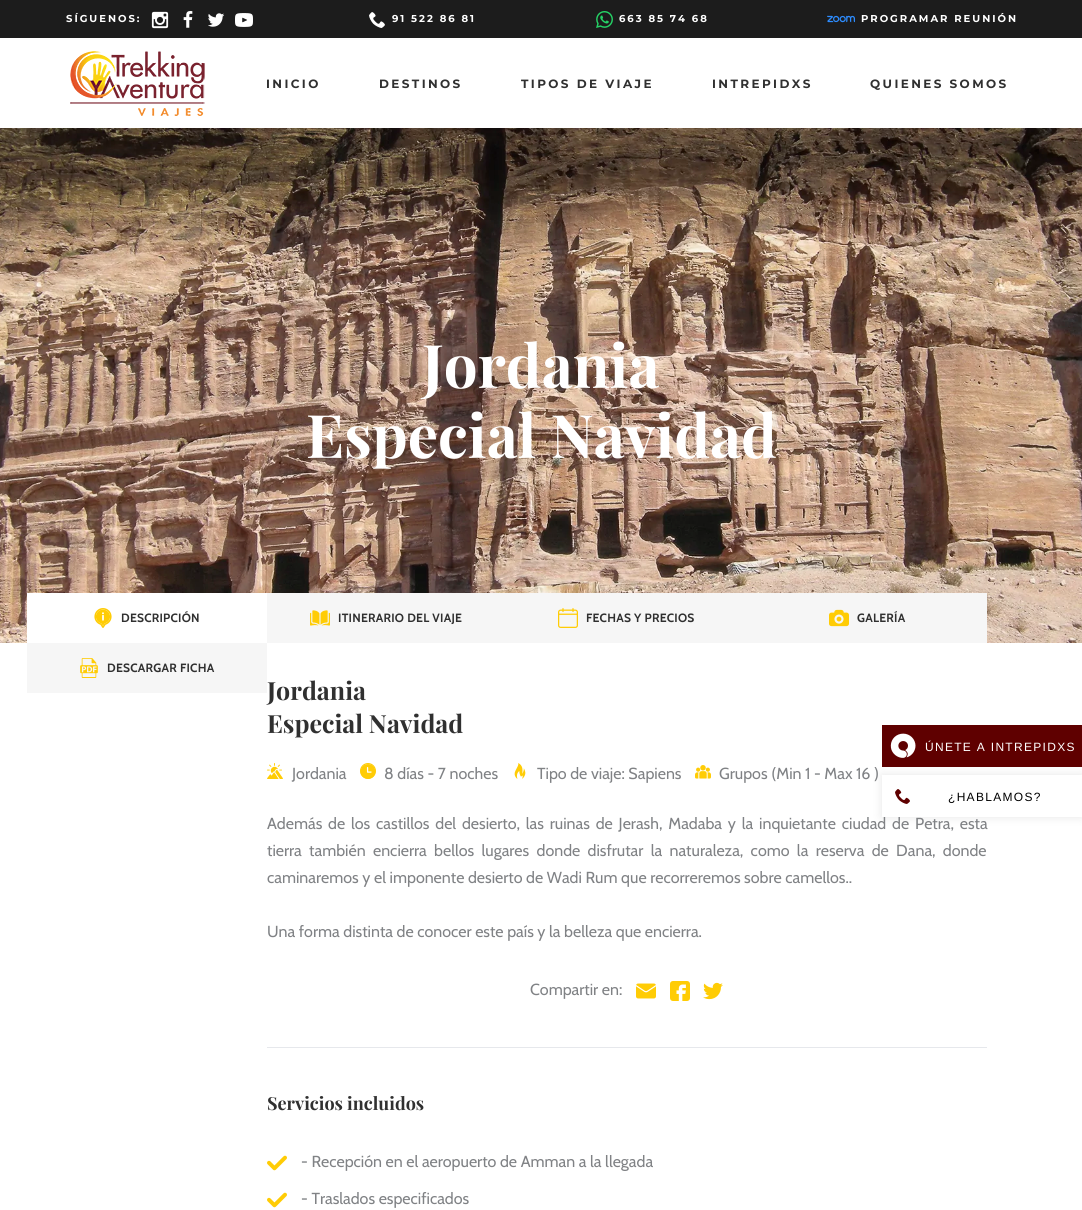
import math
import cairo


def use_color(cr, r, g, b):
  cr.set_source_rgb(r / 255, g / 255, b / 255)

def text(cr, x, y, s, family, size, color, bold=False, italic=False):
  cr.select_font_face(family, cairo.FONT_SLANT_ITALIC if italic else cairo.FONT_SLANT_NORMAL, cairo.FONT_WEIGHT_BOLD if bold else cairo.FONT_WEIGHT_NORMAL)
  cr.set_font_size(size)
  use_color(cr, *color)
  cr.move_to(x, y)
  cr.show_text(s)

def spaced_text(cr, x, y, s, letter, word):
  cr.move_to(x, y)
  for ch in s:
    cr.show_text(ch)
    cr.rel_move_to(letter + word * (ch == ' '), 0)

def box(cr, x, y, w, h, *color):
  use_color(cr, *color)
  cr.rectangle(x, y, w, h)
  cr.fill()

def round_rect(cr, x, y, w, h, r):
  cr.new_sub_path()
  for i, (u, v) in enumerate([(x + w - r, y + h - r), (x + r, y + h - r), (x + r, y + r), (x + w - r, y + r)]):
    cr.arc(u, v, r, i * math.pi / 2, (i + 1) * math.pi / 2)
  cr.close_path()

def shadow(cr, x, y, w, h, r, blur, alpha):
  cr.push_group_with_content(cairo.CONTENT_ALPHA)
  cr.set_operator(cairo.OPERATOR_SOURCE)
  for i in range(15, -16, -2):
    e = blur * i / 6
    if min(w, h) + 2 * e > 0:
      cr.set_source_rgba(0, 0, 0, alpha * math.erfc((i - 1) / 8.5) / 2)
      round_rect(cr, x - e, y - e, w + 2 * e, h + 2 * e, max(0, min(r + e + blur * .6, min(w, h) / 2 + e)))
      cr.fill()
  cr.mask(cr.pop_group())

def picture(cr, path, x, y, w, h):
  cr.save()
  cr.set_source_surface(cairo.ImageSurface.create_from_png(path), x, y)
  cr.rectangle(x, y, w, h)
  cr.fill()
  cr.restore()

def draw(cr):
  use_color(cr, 255, 255, 255)
  cr.paint()
  box(cr, 0, 0, 1082, 38, 28, 28, 28)
  picture(cr, "img_01.png", 151, 11, 18, 18)
  picture(cr, "img_02.png", 183, 11, 10, 17)
  picture(cr, "img_03.png", 208, 13, 16, 14)
  picture(cr, "img_04.png", 235, 13, 18, 14)
  picture(cr, "img_05.png", 369, 12, 16, 16)
  picture(cr, "img_06.png", 596, 11, 17, 17)
  picture(cr, "img_07.png", 827, 15, 28, 8)
  picture(cr, "img_08.png", 70, 51, 135, 65)
  picture(cr, "img_09.png", 0, 128, 1082, 515)
  box(cr, 27, 593, 240, 50, 255, 255, 255)
  picture(cr, "img_10.png", 94, 608, 18, 20)
  box(cr, 267, 593, 720, 50, 246, 246, 246)
  picture(cr, "img_11.png", 310, 610, 20, 16)
  picture(cr, "img_12.png", 558, 608, 20, 20)
  picture(cr, "img_13.png", 829, 609, 20, 18)
  box(cr, 27, 643, 240, 50, 246, 246, 246)
  picture(cr, "img_14.png", 80, 658, 18, 20)
  picture(cr, "img_15.png", 267, 763, 16, 16)
  picture(cr, "img_16.png", 360, 763, 16, 16)
  picture(cr, "img_17.png", 514, 763, 12, 16)
  picture(cr, "img_18.png", 695, 765, 16, 14)
  picture(cr, "img_19.png", 636, 983, 20, 16)
  picture(cr, "img_20.png", 670, 981, 20, 20)
  picture(cr, "img_21.png", 703, 982, 20, 18)
  box(cr, 267, 1047, 720, 1, 230, 232, 236)
  picture(cr, "img_22.png", 267, 1155, 20, 16)
  picture(cr, "img_22.png", 267, 1192, 20, 16)
  box(cr, 882, 725, 200, 42, 95, 0, 0)
  picture(cr, "img_23.png", 890, 733, 26, 25)
  cr.save()
  cr.set_fill_rule(cairo.FILL_RULE_EVEN_ODD)
  cr.new_path()
  cr.move_to(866, 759)
  cr.line_to(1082, 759)
  cr.line_to(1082, 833)
  cr.line_to(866, 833)
  cr.close_path()
  cr.move_to(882, 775)
  cr.line_to(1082, 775)
  cr.line_to(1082, 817)
  cr.line_to(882, 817)
  cr.close_path()
  cr.clip()
  use_color(cr, 0, 0, 0)
  shadow(cr, 882, 775, 200, 42, 0, 5, 0.1)
  cr.restore()
  picture(cr, "img_24.png", 895, 789, 15, 15)
  cr.select_font_face("Montserrat", cairo.FONT_SLANT_NORMAL, cairo.FONT_WEIGHT_BOLD)
  cr.set_font_size(10)
  use_color(cr, 255, 255, 255)
  spaced_text(cr, 66, 22, "SÍGUENOS:", 2, 0)
  spaced_text(cr, 392, 22, "91 522 86 81", 2, 0)
  spaced_text(cr, 619, 22, "663 85 74 68", 2, 0)
  spaced_text(cr, 861, 22, "PROGRAMAR REUNIÓN", 2, 0)
  cr.set_font_size(12)
  use_color(cr, 48, 48, 48)
  spaced_text(cr, 266, 88, "INICIO", 2.4, 0)
  spaced_text(cr, 379, 88, "DESTINOS", 2.4, 0)
  spaced_text(cr, 521, 88, "TIPOS DE VIAJE", 2.4, 0)
  spaced_text(cr, 712, 88, "INTREPIDXS", 2.4, 0)
  spaced_text(cr, 870, 88, "QUIENES SOMOS", 2.4, 0)
  text(cr, 422, 388, "Jordania", "Playfair Display", 60, (255, 255, 255), bold=True)
  text(cr, 306, 458, "Especial Navidad", "Playfair Display", 60, (255, 255, 255), bold=True)
  cr.select_font_face("Cabin", cairo.FONT_SLANT_NORMAL, cairo.FONT_WEIGHT_BOLD)
  cr.set_font_size(12)
  use_color(cr, 48, 48, 48)
  spaced_text(cr, 121, 622, "DESCRIPCIÓN", 0.25, 0)
  spaced_text(cr, 338, 622, "ITINERARIO DEL VIAJE", 0.25, 0)
  spaced_text(cr, 586, 622, "FECHAS Y PRECIOS", 0.25, 0)
  spaced_text(cr, 857, 622, "GALERÍA", 0.25, 0)
  spaced_text(cr, 107, 672, "DESCARGAR FICHA", 0.25, 0)
  text(cr, 267, 700, "Jordania", "Playfair Display", 25, (48, 48, 48), bold=True)
  text(cr, 267, 733, "Especial Navidad", "Playfair Display", 25, (48, 48, 48), bold=True)
  text(cr, 292, 779, "Jordania", "Cabin", 16, (128, 130, 133))
  text(cr, 384, 779, "8 días - 7 noches", "Cabin", 16, (128, 130, 133))
  text(cr, 537, 779, "Tipo de viaje: Sapiens", "Cabin", 16, (128, 130, 133))
  text(cr, 719, 779, "Grupos (Min 1 - Max 16 )", "Cabin", 16, (128, 130, 133))
  spaced_text(cr, 267, 829, "Además de los castillos del desierto, las ruinas de Jerash, Madaba y la inquietante ciudad de Petra, esta", 0, 2.25)
  spaced_text(cr, 267, 856, "tierra también encierra bellos lugares donde disfrutar la naturaleza, como la reserva de Dana, donde", 0, 3.75)
  text(cr, 267, 883, "caminaremos y el imponente desierto de Wadi Rum que recorreremos sobre camellos..", "Cabin", 16, (128, 130, 133))
  text(cr, 267, 937, "Una forma distinta de conocer este país y la belleza que encierra.", "Cabin", 16, (128, 130, 133))
  text(cr, 530, 995, "Compartir en:", "Cabin", 16, (128, 130, 133))
  text(cr, 267, 1110, "Servicios incluidos", "Playfair Display", 18, (48, 48, 48), bold=True)
  text(cr, 301, 1167, "- Recepción en el aeropuerto de Amman a la llegada", "Cabin", 16, (128, 130, 133))
  text(cr, 301, 1204, "- Traslados especificados", "Cabin", 16, (128, 130, 133))
  cr.select_font_face("Liberation Sans")
  cr.set_font_size(12)
  use_color(cr, 255, 255, 255)
  spaced_text(cr, 925, 751, "ÚNETE A INTREPIDXS", 1.3, 0)
  use_color(cr, 0, 0, 0)
  spaced_text(cr, 948, 801, "¿HABLAMOS?", 1.3, 0)


surface = cairo.ImageSurface(cairo.FORMAT_RGB24, 1082, 1210)
cr = cairo.Context(surface)
options = cairo.FontOptions()
options.set_hint_metrics(cairo.HINT_METRICS_OFF)
options.set_hint_style(cairo.HINT_STYLE_NONE)
cr.set_font_options(options)
cr.set_miter_limit(4)
draw(cr)
surface.write_to_png("out.png")
